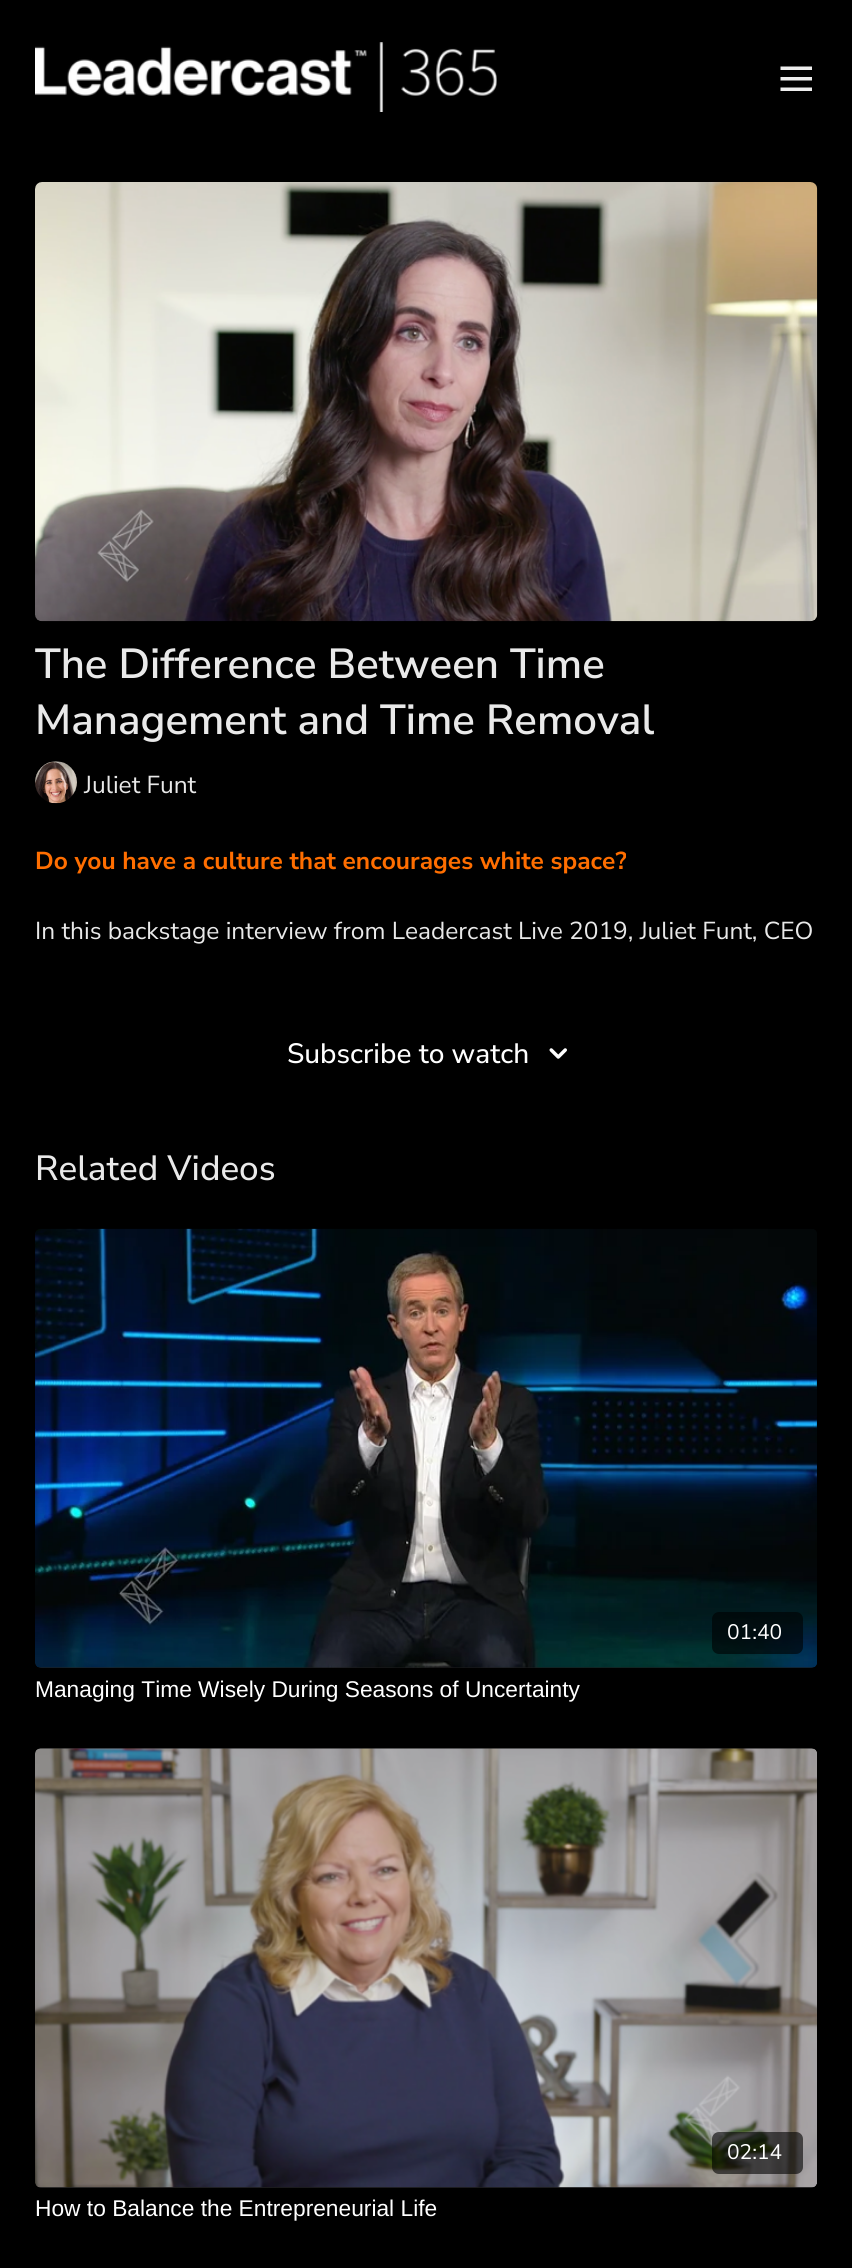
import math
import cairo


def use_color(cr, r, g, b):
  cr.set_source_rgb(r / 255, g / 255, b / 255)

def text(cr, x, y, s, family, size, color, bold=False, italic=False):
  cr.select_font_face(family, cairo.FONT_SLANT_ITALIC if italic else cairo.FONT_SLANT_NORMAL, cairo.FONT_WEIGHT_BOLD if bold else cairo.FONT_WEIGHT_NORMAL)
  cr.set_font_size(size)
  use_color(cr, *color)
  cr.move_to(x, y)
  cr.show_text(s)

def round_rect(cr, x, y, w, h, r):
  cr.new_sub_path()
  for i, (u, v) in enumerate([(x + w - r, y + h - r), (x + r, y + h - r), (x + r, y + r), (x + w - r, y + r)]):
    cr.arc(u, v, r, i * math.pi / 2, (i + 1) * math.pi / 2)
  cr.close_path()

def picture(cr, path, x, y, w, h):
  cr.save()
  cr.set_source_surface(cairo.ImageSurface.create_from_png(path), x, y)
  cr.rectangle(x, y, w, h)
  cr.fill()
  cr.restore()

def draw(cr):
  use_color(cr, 0, 0, 0)
  cr.paint()
  picture(cr, "img_01.png", 35, 42, 462, 70)
  picture(cr, "img_02.png", 780, 66, 32, 25)
  picture(cr, "img_03.png", 35, 182, 783, 440)
  picture(cr, "img_04.png", 35, 761, 42, 43)
  picture(cr, "img_05.png", 549, 1048, 18, 11)
  gradient = cairo.LinearGradient(35, 1448, 817, 1448)
  gradient.add_color_stop_rgba(0.08, 0.129, 0.129, 0.129, 1)
  gradient.add_color_stop_rgba(0.18, 0.122, 0.122, 0.122, 1)
  gradient.add_color_stop_rgba(0.33, 0.11, 0.11, 0.11, 1)
  cr.set_source(gradient)
  round_rect(cr, 35, 1229, 782, 439, 7)
  cr.fill()
  picture(cr, "img_06.png", 35, 1228, 782, 440)
  cr.set_source_rgba(0, 0, 0, 0.6)
  round_rect(cr, 712, 1612, 91, 42, 7)
  cr.fill()
  gradient = cairo.LinearGradient(35, 1968, 817, 1968)
  gradient.add_color_stop_rgba(0.08, 0.129, 0.129, 0.129, 1)
  gradient.add_color_stop_rgba(0.18, 0.122, 0.122, 0.122, 1)
  gradient.add_color_stop_rgba(0.33, 0.11, 0.11, 0.11, 1)
  cr.set_source(gradient)
  round_rect(cr, 35, 1748, 782, 440, 7)
  cr.fill()
  picture(cr, "img_07.png", 35, 1748, 782, 440)
  cr.set_source_rgba(0, 0, 0, 0.6)
  round_rect(cr, 712, 2132, 91, 42, 7)
  cr.fill()
  text(cr, 35, 678, "The Difference Between Time", "Nunito Sans SemiBold", 42, (233, 233, 233))
  text(cr, 35, 734, "Management and Time Removal", "Nunito Sans SemiBold", 42, (233, 233, 233))
  text(cr, 84, 793, "Juliet Funt", "Nunito Sans", 24.5, (233, 233, 233))
  text(cr, 35, 869, "Do you have a culture that encourages white space?", "Nunito Sans", 24.5, (255, 110, 0), bold=True)
  text(cr, 35, 939, "In this backstage interview from Leadercast Live 2019, Juliet Funt, CEO", "Nunito Sans", 24.5, (233, 233, 233))
  text(cr, 287, 1063, "Subscribe to watch", "Nunito Sans Medium", 28, (255, 255, 255))
  text(cr, 35, 1180, "Related Videos", "Nunito Sans Medium", 35, (233, 233, 233))
  text(cr, 727, 1639, "01:40", "Nunito Sans", 21, (255, 255, 255))
  text(cr, 35, 1697, "Managing Time Wisely During Seasons of Uncertainty", "Liberation Sans", 22.75, (255, 255, 255))
  text(cr, 727, 2159, "02:14", "Nunito Sans", 21, (255, 255, 255))
  text(cr, 35, 2216, "How to Balance the Entrepreneurial Life", "Liberation Sans", 22.75, (255, 255, 255))


surface = cairo.ImageSurface(cairo.FORMAT_RGB24, 852, 2268)
cr = cairo.Context(surface)
options = cairo.FontOptions()
options.set_hint_metrics(cairo.HINT_METRICS_OFF)
options.set_hint_style(cairo.HINT_STYLE_NONE)
cr.set_font_options(options)
cr.set_miter_limit(4)
draw(cr)
surface.write_to_png("out.png")
